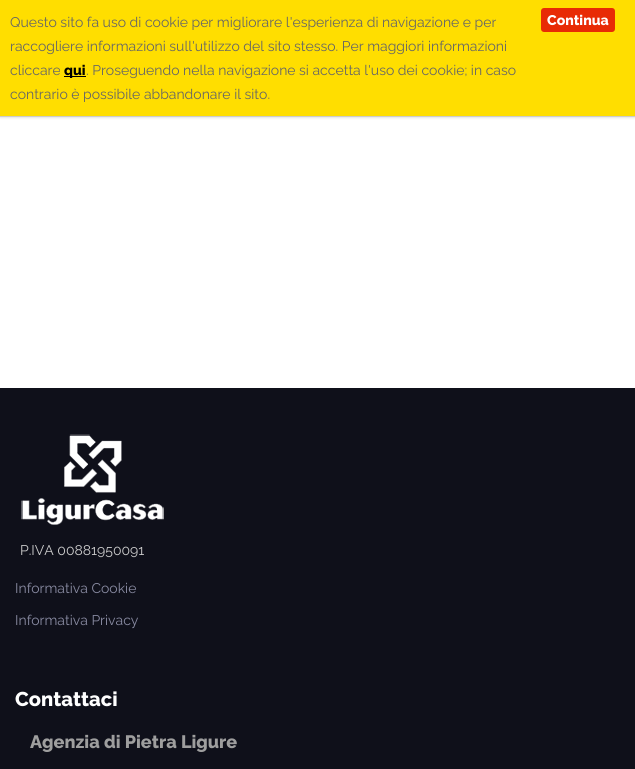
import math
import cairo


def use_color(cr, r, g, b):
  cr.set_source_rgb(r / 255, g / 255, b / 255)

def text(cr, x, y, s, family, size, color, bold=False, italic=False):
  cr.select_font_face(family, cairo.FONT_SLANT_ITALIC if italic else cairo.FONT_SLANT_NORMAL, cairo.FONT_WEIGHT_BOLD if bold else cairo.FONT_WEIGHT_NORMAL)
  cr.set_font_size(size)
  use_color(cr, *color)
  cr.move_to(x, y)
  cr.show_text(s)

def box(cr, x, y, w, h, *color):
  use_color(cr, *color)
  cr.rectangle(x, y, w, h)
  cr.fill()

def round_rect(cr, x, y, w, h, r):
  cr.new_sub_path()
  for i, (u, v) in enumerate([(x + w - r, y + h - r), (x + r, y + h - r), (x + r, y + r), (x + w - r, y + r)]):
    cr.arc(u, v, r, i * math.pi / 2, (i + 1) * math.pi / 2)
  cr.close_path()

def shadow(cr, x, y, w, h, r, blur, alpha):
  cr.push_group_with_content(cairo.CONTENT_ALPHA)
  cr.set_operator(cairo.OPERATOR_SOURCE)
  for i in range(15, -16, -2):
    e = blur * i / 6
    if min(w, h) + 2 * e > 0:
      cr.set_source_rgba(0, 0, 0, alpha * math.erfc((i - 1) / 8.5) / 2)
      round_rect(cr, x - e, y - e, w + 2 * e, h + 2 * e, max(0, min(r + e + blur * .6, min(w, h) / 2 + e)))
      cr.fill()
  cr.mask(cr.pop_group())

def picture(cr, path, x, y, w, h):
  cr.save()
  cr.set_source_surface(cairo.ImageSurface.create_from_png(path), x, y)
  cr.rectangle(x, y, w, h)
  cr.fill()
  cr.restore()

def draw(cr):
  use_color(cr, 255, 255, 255)
  cr.paint()
  use_color(cr, 204, 204, 204)
  shadow(cr, 0, 0, 635, 117, 0, 1.5, 1)
  box(cr, 0, 0, 635, 116, 255, 222, 0)
  box(cr, 0, 116, 635, 1, 204, 204, 204)
  box(cr, 64, 76, 22, 1, 0, 0, 0)
  use_color(cr, 232, 43, 5)
  round_rect(cr, 541, 8, 74, 24, 3)
  cr.fill()
  box(cr, 0, 388, 635, 381, 15, 16, 26)
  picture(cr, "img_01.png", 21, 434, 143, 91)
  text(cr, 10, 27, "Questo sito fa uso di cookie per migliorare l'esperienza di navigazione e per", "Raleway", 14, (102, 102, 102))
  text(cr, 10, 51, "raccogliere informazioni sull'utilizzo del sito stesso. Per maggiori informazioni", "Raleway", 14, (102, 102, 102))
  text(cr, 10, 75, "cliccare", "Raleway", 14, (102, 102, 102))
  text(cr, 64, 75, "qui", "Raleway ExtraBold", 14, (0, 0, 0))
  text(cr, 86, 75, ". Proseguendo nella navigazione si accetta l'uso dei cookie; in caso", "Raleway", 14, (102, 102, 102))
  text(cr, 10, 99, "contrario è possibile abbandonare il sito.", "Raleway", 14, (102, 102, 102))
  text(cr, 547, 25, "Continua", "Raleway ExtraBold", 14, (255, 255, 255))
  text(cr, 20, 555, "P.IVA 00881950091", "Raleway", 14, (204, 204, 204))
  text(cr, 15, 593, "Informativa Cookie", "Raleway", 14, (137, 139, 162))
  text(cr, 15, 625, "Informativa Privacy", "Raleway", 14, (137, 139, 162))
  text(cr, 15, 706, "Contattaci", "Raleway ExtraBold", 20, (255, 255, 255))
  text(cr, 30, 748, "Agenzia di Pietra Ligure", "Raleway ExtraBold", 18, (158, 158, 158))


surface = cairo.ImageSurface(cairo.FORMAT_RGB24, 635, 769)
cr = cairo.Context(surface)
options = cairo.FontOptions()
options.set_hint_metrics(cairo.HINT_METRICS_OFF)
options.set_hint_style(cairo.HINT_STYLE_NONE)
cr.set_font_options(options)
cr.set_miter_limit(4)
draw(cr)
surface.write_to_png("out.png")
